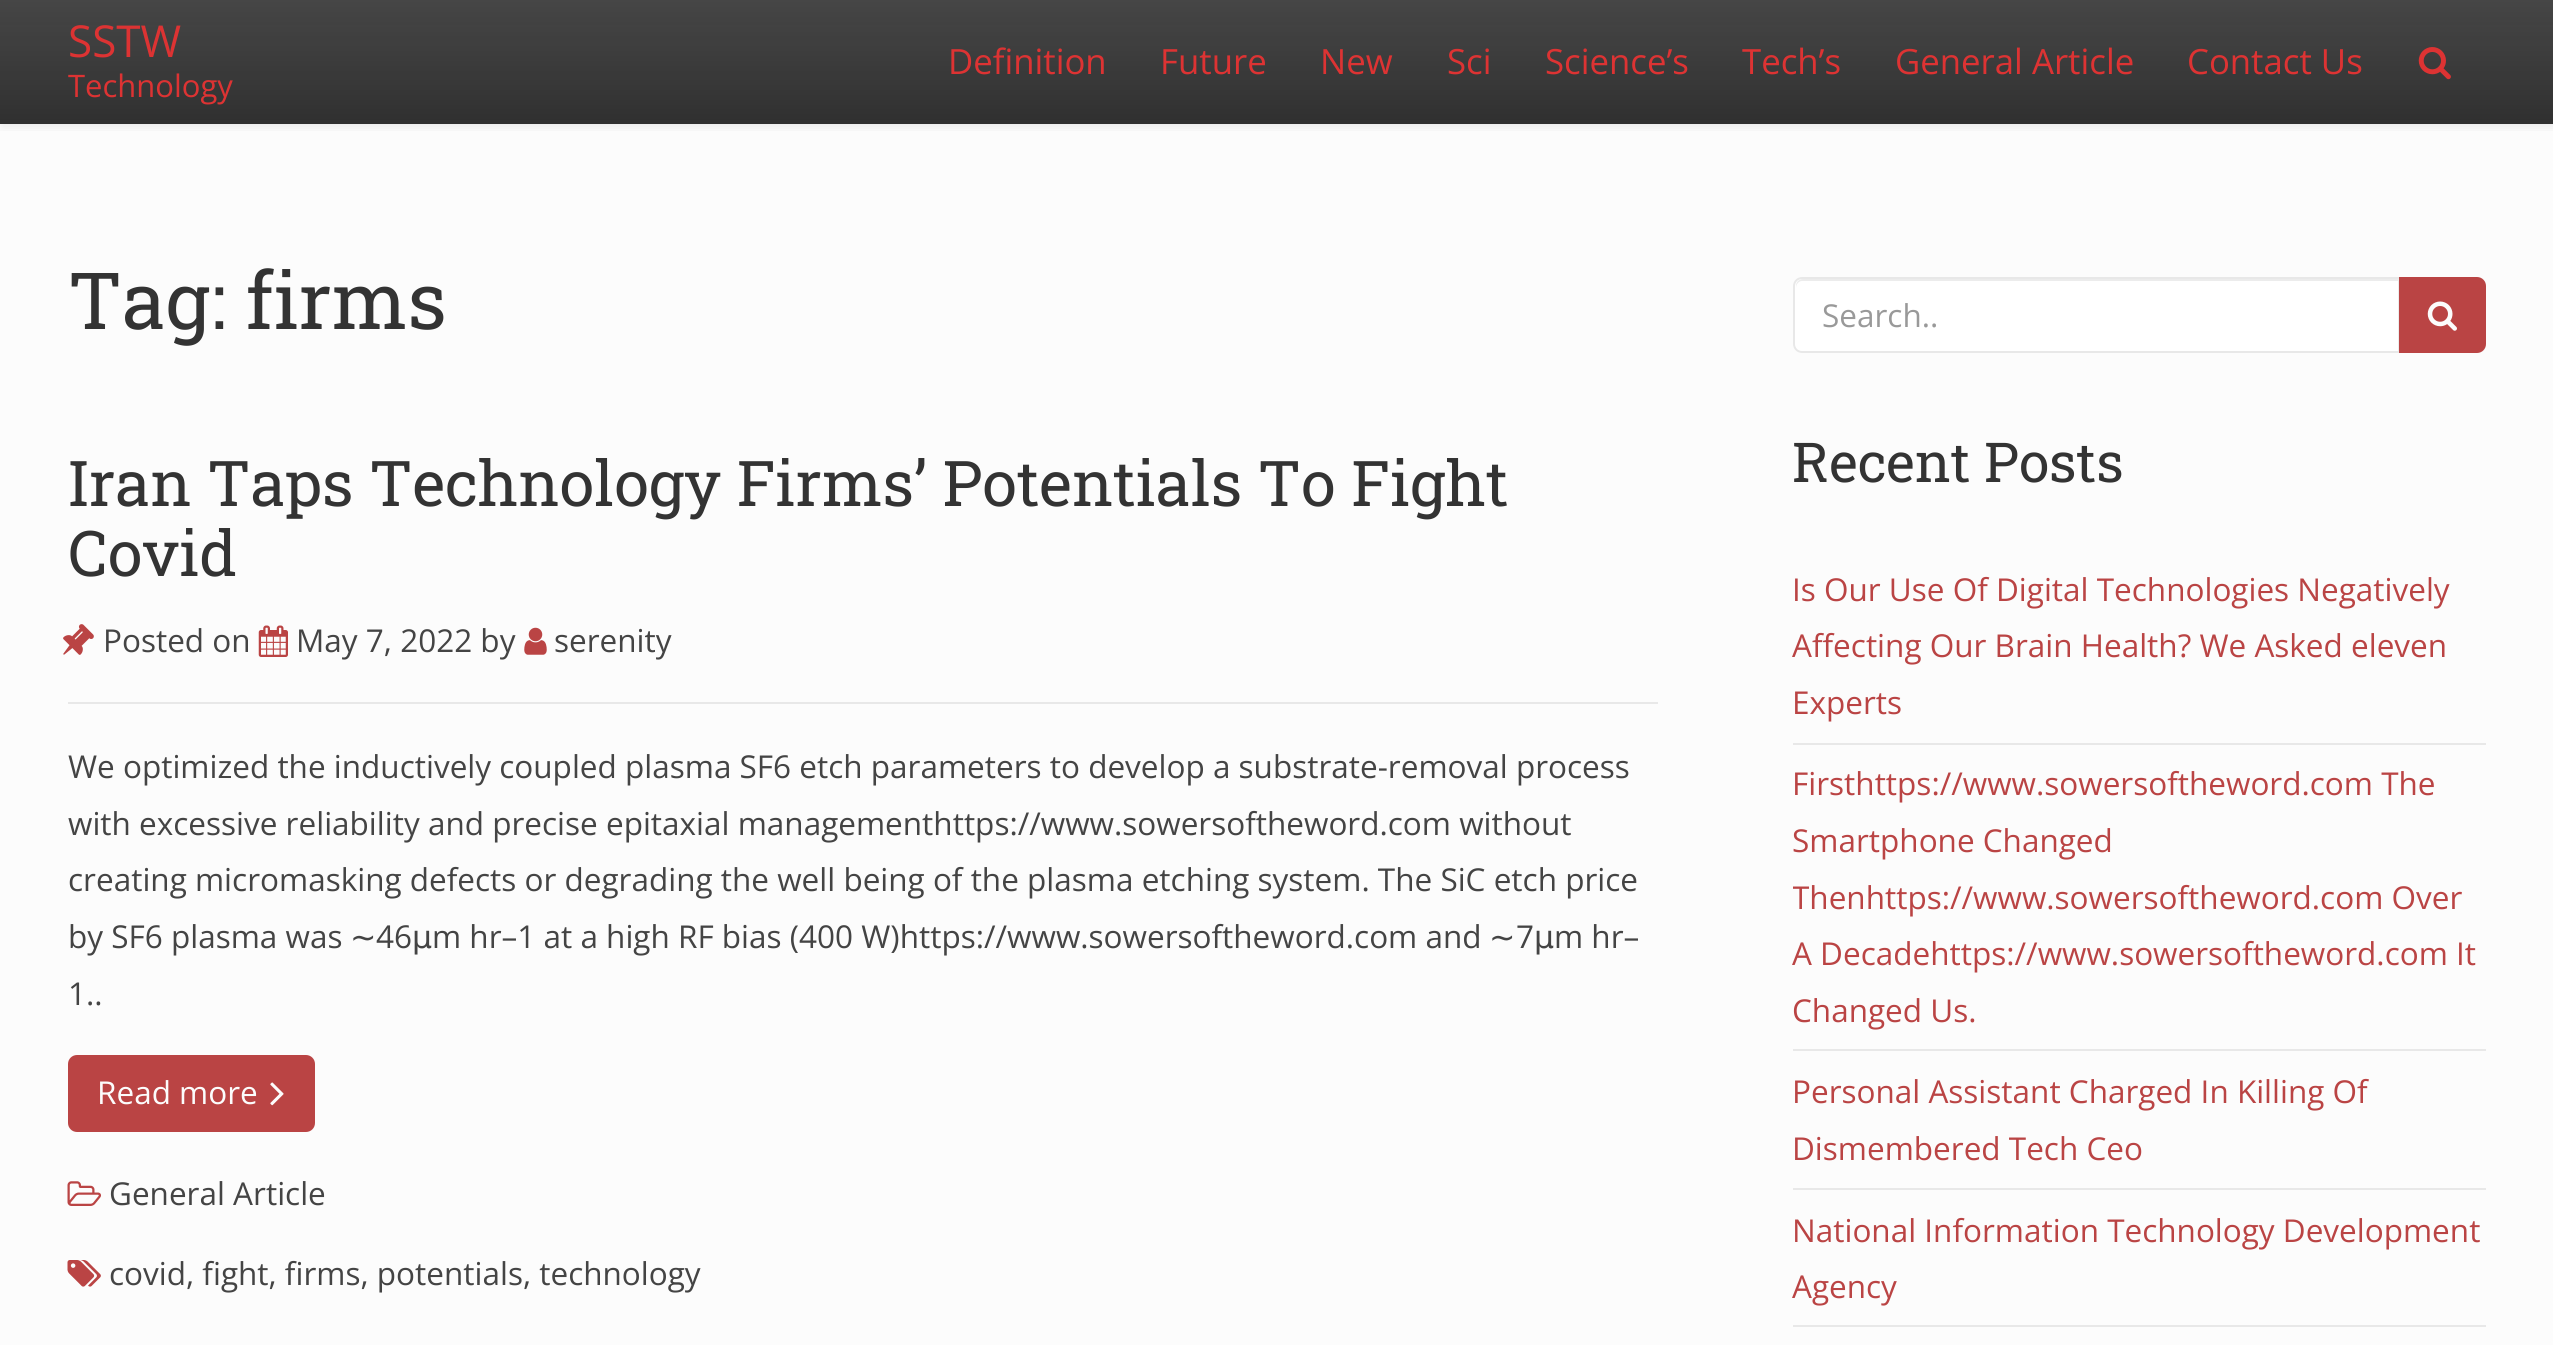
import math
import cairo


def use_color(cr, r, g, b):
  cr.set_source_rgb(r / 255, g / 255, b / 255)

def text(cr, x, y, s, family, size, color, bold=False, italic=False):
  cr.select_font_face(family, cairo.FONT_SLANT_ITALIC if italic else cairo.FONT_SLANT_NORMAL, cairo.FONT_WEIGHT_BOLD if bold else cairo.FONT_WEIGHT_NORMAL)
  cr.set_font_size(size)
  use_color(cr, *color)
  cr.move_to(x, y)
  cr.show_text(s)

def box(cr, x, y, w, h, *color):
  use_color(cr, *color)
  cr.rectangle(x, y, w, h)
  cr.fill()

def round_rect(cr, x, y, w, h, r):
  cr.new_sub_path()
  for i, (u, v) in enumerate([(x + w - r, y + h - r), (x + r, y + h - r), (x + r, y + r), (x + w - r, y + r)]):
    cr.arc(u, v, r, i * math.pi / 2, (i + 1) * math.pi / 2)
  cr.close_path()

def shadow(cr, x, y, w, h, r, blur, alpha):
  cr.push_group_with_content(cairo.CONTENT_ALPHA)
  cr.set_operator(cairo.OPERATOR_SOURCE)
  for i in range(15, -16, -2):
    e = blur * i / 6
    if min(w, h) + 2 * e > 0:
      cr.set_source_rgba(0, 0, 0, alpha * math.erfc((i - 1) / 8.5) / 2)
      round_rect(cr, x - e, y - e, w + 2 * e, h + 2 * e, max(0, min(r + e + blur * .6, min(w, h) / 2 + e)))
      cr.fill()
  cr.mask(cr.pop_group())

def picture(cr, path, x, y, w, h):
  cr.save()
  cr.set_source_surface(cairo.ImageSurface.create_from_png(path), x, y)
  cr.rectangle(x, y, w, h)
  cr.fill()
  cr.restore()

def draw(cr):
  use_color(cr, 252, 252, 252)
  cr.paint()
  cr.save()
  cr.rectangle(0, 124, 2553, 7)
  cr.clip()
  use_color(cr, 25, 25, 25)
  shadow(cr, 2, 2, 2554, 124, 0, 5.5, 0.1)
  cr.restore()
  gradient = cairo.LinearGradient(1277, 0, 1277, 124)
  gradient.add_color_stop_rgba(0, 0.098, 0.098, 0.098, 0.8)
  gradient.add_color_stop_rgba(1, 0.098, 0.098, 0.098, 0.9)
  cr.set_source(gradient)
  cr.rectangle(0, 0, 2553, 124)
  cr.fill()
  picture(cr, "img_01.png", 2418, 47, 33, 33)
  box(cr, 68, 702, 1590, 2, 232, 232, 232)
  picture(cr, "img_02.png", 63, 624, 31, 31)
  picture(cr, "img_03.png", 258, 625, 30, 32)
  picture(cr, "img_04.png", 524, 627, 23, 28)
  use_color(cr, 186, 68, 68)
  round_rect(cr, 68, 1055, 247, 77, 9)
  cr.fill()
  picture(cr, "img_05.png", 270, 1082, 14, 24)
  picture(cr, "img_06.png", 67, 1181, 34, 25)
  picture(cr, "img_07.png", 67, 1260, 34, 27)
  use_color(cr, 255, 255, 255)
  cr.new_path()
  cr.move_to(1802, 277)
  cr.line_to(2401, 277)
  cr.line_to(2401, 353)
  cr.line_to(1802, 353)
  cr.curve_to(1797, 353, 1793, 349, 1793, 344)
  cr.line_to(1793, 286)
  cr.curve_to(1793, 281, 1797, 277, 1802, 277)
  cr.close_path()
  cr.fill()
  use_color(cr, 236, 236, 236)
  cr.new_path()
  cr.move_to(1802, 281)
  cr.line_to(2398, 281)
  cr.line_to(2398, 351)
  cr.line_to(2399, 351)
  cr.line_to(2399, 279)
  cr.line_to(1803, 279)
  cr.curve_to(1799, 279, 1796, 282, 1796, 286)
  cr.line_to(1796, 288)
  cr.curve_to(1796, 284, 1799, 281, 1802, 281)
  cr.close_path()
  cr.fill()
  cr.new_path()
  cr.move_to(1802, 278)
  cr.line_to(2400, 278)
  cr.line_to(2400, 352)
  cr.line_to(1802, 352)
  cr.curve_to(1797.5, 352, 1794, 348.5, 1794, 344)
  cr.line_to(1794, 286)
  cr.curve_to(1794, 281.5, 1797.5, 278, 1802, 278)
  cr.close_path()
  use_color(cr, 232, 232, 232)
  cr.stroke()
  use_color(cr, 186, 68, 68)
  cr.new_path()
  cr.move_to(2399, 277)
  cr.line_to(2477, 277)
  cr.curve_to(2482, 277, 2486, 281, 2486, 286)
  cr.line_to(2486, 344)
  cr.curve_to(2486, 349, 2482, 353, 2477, 353)
  cr.line_to(2399, 353)
  cr.close_path()
  cr.fill()
  picture(cr, "img_08.png", 2427, 301, 30, 30)
  box(cr, 1793, 743, 693, 2, 232, 232, 232)
  box(cr, 1793, 1049, 693, 2, 232, 232, 232)
  box(cr, 1793, 1188, 693, 2, 232, 232, 232)
  box(cr, 1793, 1325, 693, 2, 232, 232, 232)
  text(cr, 68, 57, "SSTW", "Open Sans", 44, (221, 51, 51))
  text(cr, 68, 97, "Technology", "Open Sans", 31, (221, 51, 51))
  text(cr, 948, 74, "Definition", "Open Sans", 34.75, (221, 51, 51))
  text(cr, 1160, 74, "Future", "Open Sans", 34.75, (221, 51, 51))
  text(cr, 1320, 74, "New", "Open Sans", 34.75, (221, 51, 51))
  text(cr, 1447, 74, "Sci", "Open Sans", 34.75, (221, 51, 51))
  text(cr, 1545, 74, "Science’s", "Open Sans", 34.75, (221, 51, 51))
  text(cr, 1742, 74, "Tech’s", "Open Sans", 34.75, (221, 51, 51))
  text(cr, 1895, 74, "General Article", "Open Sans", 34.75, (221, 51, 51))
  text(cr, 2187, 74, "Contact Us", "Open Sans", 34.75, (221, 51, 51))
  text(cr, 68, 329, "Tag: firms", "Roboto Slab", 78.75, (51, 51, 51))
  text(cr, 68, 506, "Iran Taps Technology Firms’ Potentials To Fight", "Roboto Slab", 63, (51, 51, 51))
  text(cr, 68, 576, "Covid", "Roboto Slab", 63, (51, 51, 51))
  text(cr, 103, 652, "Posted on", "Open Sans", 31.5, (68, 68, 68))
  text(cr, 296, 652, "May 7, 2022 by", "Open Sans", 31.5, (68, 68, 68))
  text(cr, 554, 652, "serenity", "Open Sans", 31.5, (68, 68, 68))
  text(cr, 68, 778, "We optimized the inductively coupled plasma SF6 etch parameters to develop a substrate-removal process", "Open Sans", 31.5, (68, 68, 68))
  text(cr, 68, 835, "with excessive reliability and precise epitaxial managementhttps://www.sowersoftheword.com without", "Open Sans", 31.5, (68, 68, 68))
  text(cr, 68, 891, "creating micromasking defects or degrading the well being of the plasma etching system. The SiC etch price", "Open Sans", 31.5, (68, 68, 68))
  text(cr, 68, 948, "by SF6 plasma was", "Open Sans", 31.5, (68, 68, 68))
  text(cr, 350, 948, "∼", "DejaVu Sans", 31.5, (68, 68, 68))
  text(cr, 376, 948, "46", "Open Sans", 31.5, (68, 68, 68))
  text(cr, 412, 948, "μ", "DejaVu Sans", 31.5, (68, 68, 68))
  text(cr, 432, 948, "m hr–1 at a high RF bias (400 W)https://www.sowersoftheword.com and", "Open Sans", 31.5, (68, 68, 68))
  text(cr, 1489, 948, "∼", "DejaVu Sans", 31.5, (68, 68, 68))
  text(cr, 1516, 948, "7", "Open Sans", 31.5, (68, 68, 68))
  text(cr, 1534, 948, "μ", "DejaVu Sans", 31.5, (68, 68, 68))
  text(cr, 1554, 948, "m hr–", "Open Sans", 31.5, (68, 68, 68))
  text(cr, 68, 1005, "1..", "Open Sans", 31.5, (68, 68, 68))
  text(cr, 97, 1104, "Read more", "Open Sans", 31.5, (252, 252, 252))
  text(cr, 109, 1205, "General Article", "Open Sans", 31.5, (68, 68, 68))
  text(cr, 109, 1285, "covid, fight, firms, potentials, technology", "Open Sans", 31.5, (68, 68, 68))
  text(cr, 1822, 327, "Search..", "Open Sans", 31.5, (153, 153, 153))
  text(cr, 1792, 482, "Recent Posts", "Roboto Slab", 55, (51, 51, 51))
  text(cr, 1792, 601, "Is Our Use Of Digital Technologies Negatively", "Open Sans", 31.5, (186, 68, 68))
  text(cr, 1792, 657, "Affecting Our Brain Health? We Asked eleven", "Open Sans", 31.5, (186, 68, 68))
  text(cr, 1792, 714, "Experts", "Open Sans", 31.5, (186, 68, 68))
  text(cr, 1792, 795, "Firsthttps://www.sowersoftheword.com The", "Open Sans", 31.5, (186, 68, 68))
  text(cr, 1792, 852, "Smartphone Changed", "Open Sans", 31.5, (186, 68, 68))
  cr.save()
  cr.rectangle(1793, 365, 693, 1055)
  cr.clip()
  text(cr, 1792, 909, "Thenhttps://www.sowersoftheword.com Over", "Open Sans", 31.5, (186, 68, 68))
  cr.restore()
  text(cr, 1792, 965, "A Decadehttps://www.sowersoftheword.com It", "Open Sans", 31.5, (186, 68, 68))
  text(cr, 1792, 1022, "Changed Us.", "Open Sans", 31.5, (186, 68, 68))
  text(cr, 1792, 1103, "Personal Assistant Charged In Killing Of", "Open Sans", 31.5, (186, 68, 68))
  text(cr, 1792, 1160, "Dismembered Tech Ceo", "Open Sans", 31.5, (186, 68, 68))
  text(cr, 1792, 1242, "National Information Technology Development", "Open Sans", 31.5, (186, 68, 68))
  text(cr, 1792, 1298, "Agency", "Open Sans", 31.5, (186, 68, 68))


surface = cairo.ImageSurface(cairo.FORMAT_RGB24, 2553, 1345)
cr = cairo.Context(surface)
options = cairo.FontOptions()
options.set_hint_metrics(cairo.HINT_METRICS_OFF)
options.set_hint_style(cairo.HINT_STYLE_NONE)
cr.set_font_options(options)
cr.set_miter_limit(4)
draw(cr)
surface.write_to_png("out.png")
